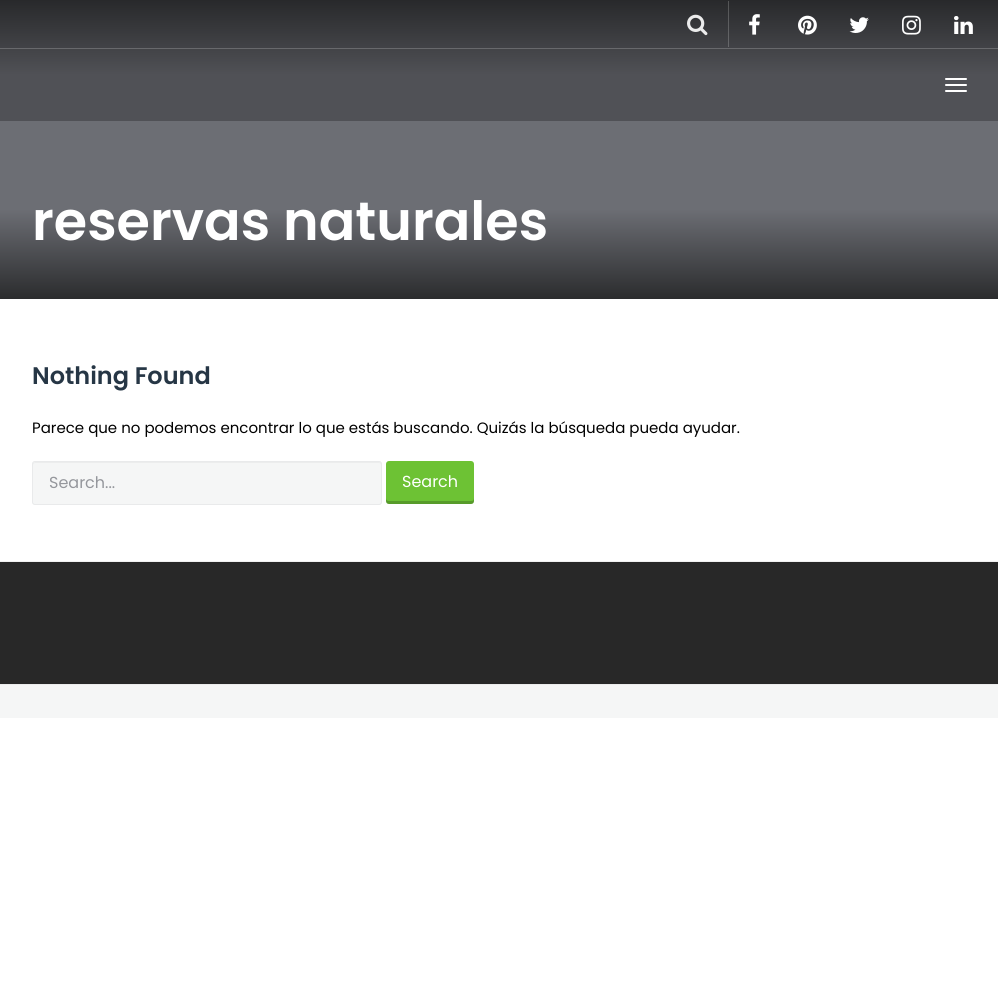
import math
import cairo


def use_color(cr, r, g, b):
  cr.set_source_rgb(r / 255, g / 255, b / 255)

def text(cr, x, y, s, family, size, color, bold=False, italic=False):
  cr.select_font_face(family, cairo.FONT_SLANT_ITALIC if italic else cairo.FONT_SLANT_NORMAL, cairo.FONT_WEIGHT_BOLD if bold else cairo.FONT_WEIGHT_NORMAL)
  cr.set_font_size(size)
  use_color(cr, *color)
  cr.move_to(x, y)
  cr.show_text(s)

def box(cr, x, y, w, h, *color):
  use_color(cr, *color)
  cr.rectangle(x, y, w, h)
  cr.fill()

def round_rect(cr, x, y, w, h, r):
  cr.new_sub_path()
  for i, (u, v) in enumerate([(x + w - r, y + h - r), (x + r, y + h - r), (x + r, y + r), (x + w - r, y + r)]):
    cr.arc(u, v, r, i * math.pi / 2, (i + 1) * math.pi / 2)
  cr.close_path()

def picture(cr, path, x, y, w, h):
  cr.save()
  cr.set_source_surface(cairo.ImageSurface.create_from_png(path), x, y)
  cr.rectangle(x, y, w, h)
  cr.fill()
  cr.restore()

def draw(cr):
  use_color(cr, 255, 255, 255)
  cr.paint()
  gradient = cairo.LinearGradient(499, 0, 499, 299)
  gradient.add_color_stop_rgba(0, 0.157, 0.161, 0.169, 1)
  gradient.add_color_stop_rgba(0.25, 0.314, 0.318, 0.337, 1)
  gradient.add_color_stop_rgba(0.7, 0.314, 0.318, 0.337, 1)
  gradient.add_color_stop_rgba(1, 0.125, 0.129, 0.133, 1)
  cr.set_source(gradient)
  cr.rectangle(0, 0, 998, 121)
  cr.fill()
  box(cr, 0, 48, 998, 1, 104, 105, 108)
  picture(cr, "img_01.png", 687, 14, 21, 22)
  picture(cr, "img_02.png", 749, 14, 11, 21)
  picture(cr, "img_03.png", 798, 15, 19, 20)
  picture(cr, "img_04.png", 849, 17, 20, 16)
  picture(cr, "img_05.png", 902, 15, 19, 20)
  picture(cr, "img_06.png", 954, 16, 19, 18)
  use_color(cr, 255, 255, 255)
  round_rect(cr, 945, 78, 22, 2, 1)
  cr.fill()
  round_rect(cr, 945, 84, 22, 2, 1)
  cr.fill()
  round_rect(cr, 945, 90, 22, 2, 1)
  cr.fill()
  gradient = cairo.LinearGradient(499, 0, 499, 299)
  gradient.add_color_stop_rgba(0, 0.212, 0.216, 0.227, 1)
  gradient.add_color_stop_rgba(0.25, 0.424, 0.431, 0.455, 1)
  gradient.add_color_stop_rgba(0.7, 0.424, 0.431, 0.455, 1)
  gradient.add_color_stop_rgba(1, 0.169, 0.173, 0.18, 1)
  cr.set_source(gradient)
  cr.rectangle(0, 121, 998, 178)
  cr.fill()
  gradient = cairo.LinearGradient(499, 0, 499, 299)
  gradient.add_color_stop_rgba(0, 0.325, 0.329, 0.333, 1)
  gradient.add_color_stop_rgba(0.25, 0.451, 0.455, 0.471, 1)
  gradient.add_color_stop_rgba(0.7, 0.451, 0.455, 0.471, 1)
  gradient.add_color_stop_rgba(1, 0.302, 0.302, 0.306, 1)
  cr.set_source(gradient)
  cr.rectangle(728, 1, 1, 46)
  cr.fill()
  use_color(cr, 245, 246, 246)
  round_rect(cr, 32, 461, 350, 44, 3)
  cr.fill()
  use_color(cr, 236, 237, 237)
  cr.new_path()
  cr.move_to(35, 463)
  cr.line_to(379, 463)
  cr.curve_to(380, 463, 381, 464, 381, 465)
  cr.curve_to(381, 464, 381, 462, 379, 462)
  cr.line_to(35, 462)
  cr.line_to(33, 463)
  cr.line_to(33, 465)
  cr.curve_to(33, 464, 34, 463, 35, 463)
  cr.close_path()
  cr.fill()
  round_rect(cr, 32.5, 461.5, 349, 43, 2.5)
  use_color(cr, 233, 234, 235)
  cr.set_line_width(1)
  cr.stroke()
  use_color(cr, 109, 194, 52)
  round_rect(cr, 386, 461, 88, 43, 3)
  cr.fill()
  cr.set_source_rgba(0, 0, 0, 0.2)
  cr.new_path()
  cr.move_to(386, 498)
  cr.line_to(386, 501)
  cr.curve_to(386, 503, 387, 504, 389, 504)
  cr.line_to(471, 504)
  cr.curve_to(473, 504, 474, 503, 474, 501)
  cr.line_to(474, 498)
  cr.curve_to(474, 500, 473, 501, 471, 501)
  cr.line_to(389, 501)
  cr.curve_to(387, 501, 386, 500, 386, 498)
  cr.close_path()
  cr.fill()
  box(cr, 0, 561, 998, 1, 241, 241, 241)
  box(cr, 0, 562, 998, 122, 40, 40, 40)
  box(cr, 0, 685, 998, 33, 245, 246, 246)
  box(cr, 0, 684, 998, 1, 235, 236, 236)
  text(cr, 32, 240, "reservas naturales", "Poppins SemiBold", 54, (255, 255, 255))
  text(cr, 32, 384, "Nothing Found", "Poppins SemiBold", 24, (38, 54, 69))
  text(cr, 32, 433, "Parece que no podemos encontrar lo que estás buscando. Quizás la búsqueda pueda ayudar.", "Poppins", 15, (0, 0, 0))
  text(cr, 49, 488, "Search...", "Poppins", 16, (149, 151, 156))
  text(cr, 402, 487, "Search", "Poppins", 16, (255, 255, 255))


surface = cairo.ImageSurface(cairo.FORMAT_RGB24, 998, 999)
cr = cairo.Context(surface)
options = cairo.FontOptions()
options.set_hint_metrics(cairo.HINT_METRICS_OFF)
options.set_hint_style(cairo.HINT_STYLE_NONE)
cr.set_font_options(options)
cr.set_miter_limit(4)
draw(cr)
surface.write_to_png("out.png")
